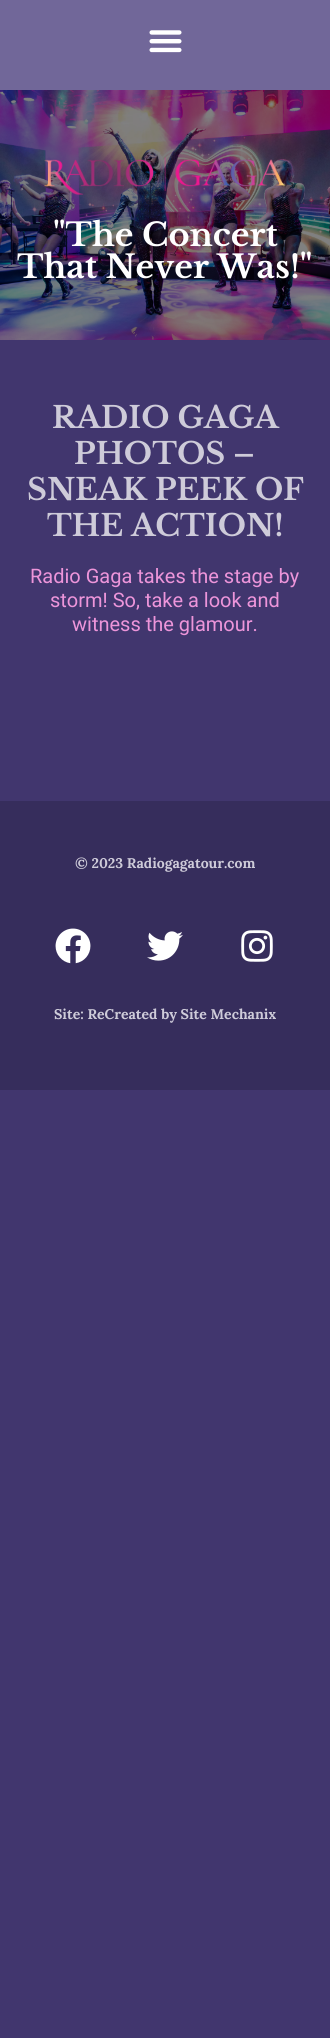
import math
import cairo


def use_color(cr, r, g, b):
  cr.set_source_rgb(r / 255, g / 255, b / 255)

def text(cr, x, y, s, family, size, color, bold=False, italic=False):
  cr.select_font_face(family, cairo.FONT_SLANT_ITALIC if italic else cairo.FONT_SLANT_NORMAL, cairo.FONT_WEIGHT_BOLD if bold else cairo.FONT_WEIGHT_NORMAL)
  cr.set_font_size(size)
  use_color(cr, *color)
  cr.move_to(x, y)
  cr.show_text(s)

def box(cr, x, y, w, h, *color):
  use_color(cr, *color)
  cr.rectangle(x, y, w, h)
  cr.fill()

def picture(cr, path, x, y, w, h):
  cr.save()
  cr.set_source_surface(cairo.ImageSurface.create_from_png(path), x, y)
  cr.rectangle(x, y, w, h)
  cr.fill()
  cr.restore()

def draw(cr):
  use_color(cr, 65, 54, 110)
  cr.paint()
  box(cr, 0, 0, 330, 90, 113, 103, 153)
  picture(cr, "img_01.png", 149, 30, 33, 23)
  picture(cr, "img_02.png", 0, 90, 330, 250)
  picture(cr, "img_03.png", 44, 157, 242, 38)
  box(cr, 0, 801, 330, 289, 54, 45, 92)
  picture(cr, "img_04.png", 55, 928, 36, 36)
  picture(cr, "img_05.png", 147, 931, 36, 30)
  picture(cr, "img_06.png", 241, 930, 32, 32)
  text(cr, 53, 246, "\"The Concert", "Libre Baskerville", 32, (255, 255, 255), bold=True)
  text(cr, 17, 278, "That Never Was!\"", "Libre Baskerville", 32, (255, 255, 255), bold=True)
  text(cr, 52, 428, "RADIO GAGA", "Libre Baskerville", 30, (206, 203, 217), bold=True)
  text(cr, 74, 464, "PHOTOS –", "Libre Baskerville", 30, (206, 203, 217), bold=True)
  text(cr, 27, 500, "SNEAK PEEK OF", "Libre Baskerville", 30, (206, 203, 217), bold=True)
  text(cr, 47, 536, "THE ACTION!", "Libre Baskerville", 30, (206, 203, 217), bold=True)
  text(cr, 30, 583, "Radio Gaga takes the stage by", "Roboto", 20, (237, 149, 218))
  text(cr, 50, 607, "storm! So, take a look and", "Roboto", 20, (237, 149, 218))
  text(cr, 72, 631, "witness the glamour.", "Roboto", 20, (237, 149, 218))
  text(cr, 75, 868, "© 2023 Radiogagatour.com", "Lora", 14, (206, 203, 217), bold=True)
  text(cr, 54, 1019, "Site: ReCreated by Site Mechanix", "Lora", 14, (206, 203, 217), bold=True)


surface = cairo.ImageSurface(cairo.FORMAT_RGB24, 330, 2038)
cr = cairo.Context(surface)
options = cairo.FontOptions()
options.set_hint_metrics(cairo.HINT_METRICS_OFF)
options.set_hint_style(cairo.HINT_STYLE_NONE)
cr.set_font_options(options)
cr.set_miter_limit(4)
draw(cr)
surface.write_to_png("out.png")
